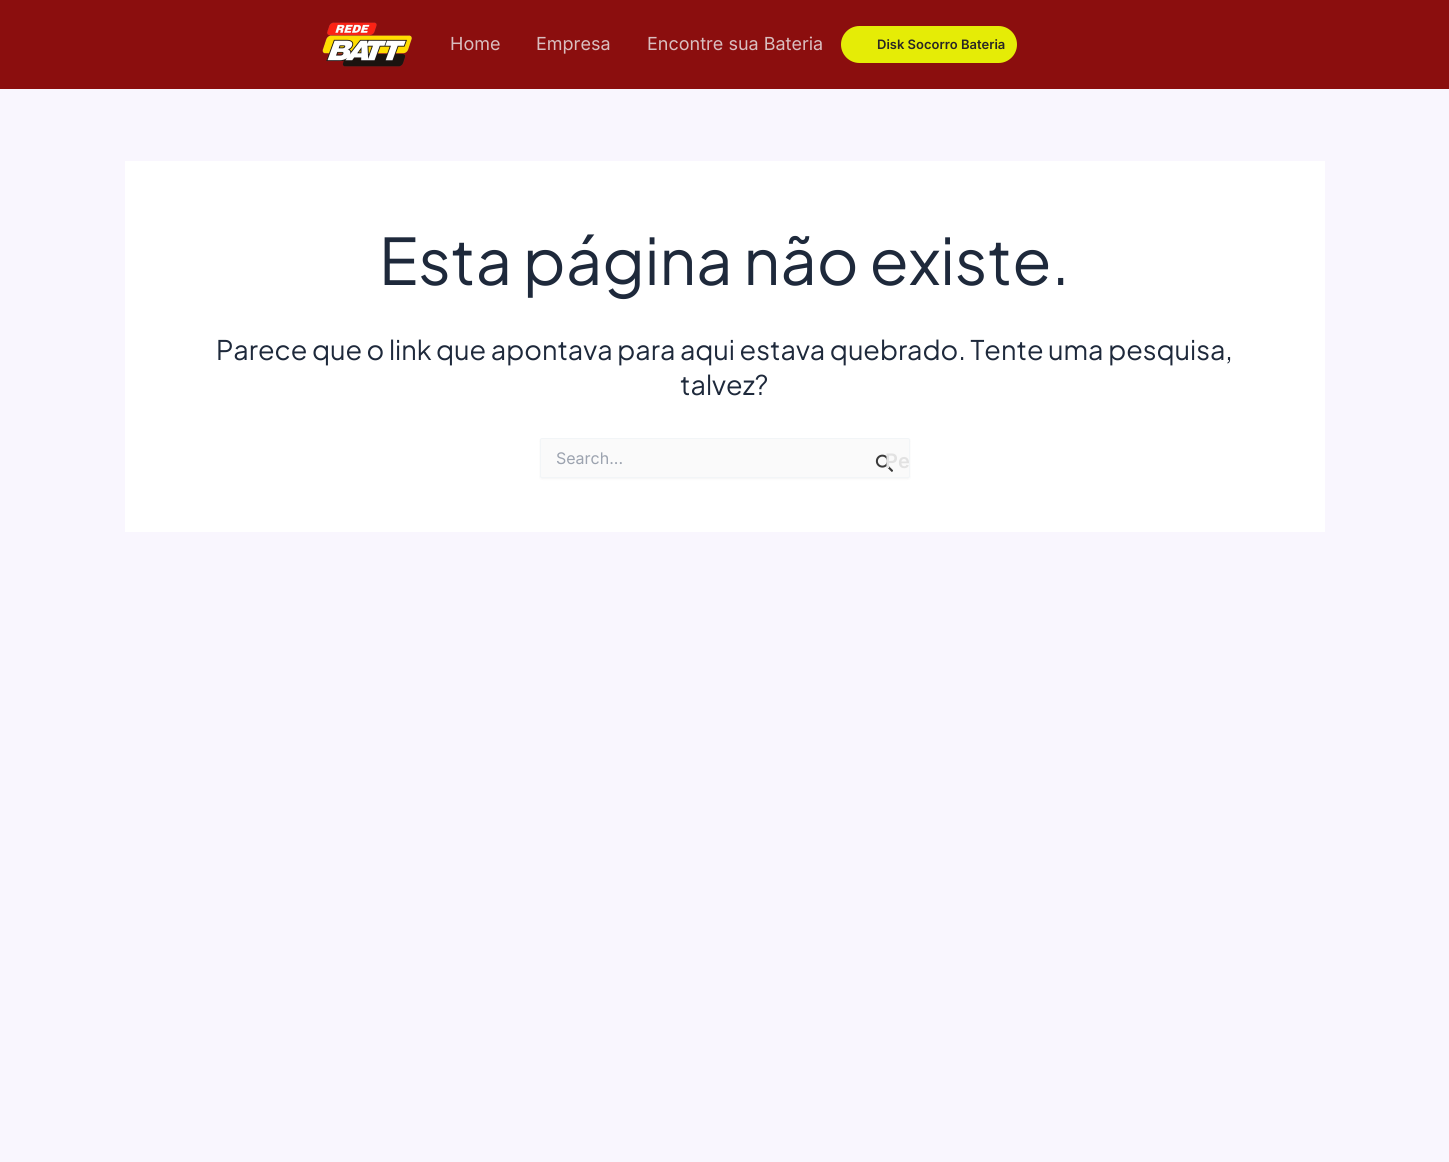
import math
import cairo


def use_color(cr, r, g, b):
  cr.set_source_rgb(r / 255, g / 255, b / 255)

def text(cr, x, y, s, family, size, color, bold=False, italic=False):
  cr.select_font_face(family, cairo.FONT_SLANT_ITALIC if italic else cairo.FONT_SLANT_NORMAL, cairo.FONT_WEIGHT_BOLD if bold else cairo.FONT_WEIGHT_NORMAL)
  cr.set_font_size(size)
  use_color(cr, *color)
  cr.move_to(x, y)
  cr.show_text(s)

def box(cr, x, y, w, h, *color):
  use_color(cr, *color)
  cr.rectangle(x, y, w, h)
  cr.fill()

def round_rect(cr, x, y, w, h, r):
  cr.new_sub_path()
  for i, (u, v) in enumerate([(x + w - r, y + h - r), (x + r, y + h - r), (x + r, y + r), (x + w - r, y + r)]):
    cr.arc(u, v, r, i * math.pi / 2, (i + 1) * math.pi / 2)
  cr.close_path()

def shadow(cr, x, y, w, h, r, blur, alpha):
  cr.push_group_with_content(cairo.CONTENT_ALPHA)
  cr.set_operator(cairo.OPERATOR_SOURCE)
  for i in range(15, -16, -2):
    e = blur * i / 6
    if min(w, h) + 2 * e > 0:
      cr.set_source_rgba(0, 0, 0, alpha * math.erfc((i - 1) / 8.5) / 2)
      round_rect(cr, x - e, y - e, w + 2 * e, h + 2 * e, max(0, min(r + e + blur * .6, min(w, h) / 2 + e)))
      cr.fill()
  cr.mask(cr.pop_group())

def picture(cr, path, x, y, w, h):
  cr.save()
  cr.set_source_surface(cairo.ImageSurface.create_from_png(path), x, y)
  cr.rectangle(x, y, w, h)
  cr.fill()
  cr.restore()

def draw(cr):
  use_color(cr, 249, 246, 254)
  cr.paint()
  box(cr, 0, 0, 1449, 89, 139, 14, 14)
  picture(cr, "img_01.png", 322, 22, 90, 45)
  use_color(cr, 229, 236, 6)
  round_rect(cr, 841, 26, 176, 37, 18.5)
  cr.fill()
  box(cr, 125, 161, 1200, 371, 255, 255, 255)
  use_color(cr, 0, 0, 0)
  shadow(cr, 540, 439, 370, 40, 2, 1, 0.05)
  use_color(cr, 250, 250, 250)
  round_rect(cr, 540.5, 438.5, 369, 39, 1.5)
  cr.fill_preserve()
  use_color(cr, 242, 245, 247)
  cr.set_line_width(1)
  cr.stroke()
  picture(cr, "img_02.png", 875, 454, 18, 18)
  text(cr, 450, 50, "Home", "Inter", 18, (217, 190, 191))
  text(cr, 536, 50, "Empresa", "Inter", 18, (217, 190, 191))
  text(cr, 647, 50, "Encontre sua Bateria", "Inter", 18, (217, 190, 191))
  text(cr, 877, 49, "Disk Socorro Bateria", "Inter SemiBold", 13, (40, 37, 37))
  text(cr, 379, 285, "Esta página não existe.", "Plus Jakarta Sans", 64, (30, 41, 59))
  text(cr, 216, 360, "Parece que o link que apontava para aqui estava quebrado. Tente uma pesquisa,", "Plus Jakarta Sans", 27, (30, 41, 59))
  text(cr, 680, 395, "talvez?", "Plus Jakarta Sans", 27, (30, 41, 59))
  text(cr, 556, 464, "Search...", "Inter", 16, (156, 163, 175))
  text(cr, 885, 468, "Pe", "Inter SemiBold", 20, (226, 226, 226))


surface = cairo.ImageSurface(cairo.FORMAT_RGB24, 1449, 1162)
cr = cairo.Context(surface)
options = cairo.FontOptions()
options.set_hint_metrics(cairo.HINT_METRICS_OFF)
options.set_hint_style(cairo.HINT_STYLE_NONE)
cr.set_font_options(options)
cr.set_miter_limit(4)
draw(cr)
surface.write_to_png("out.png")
